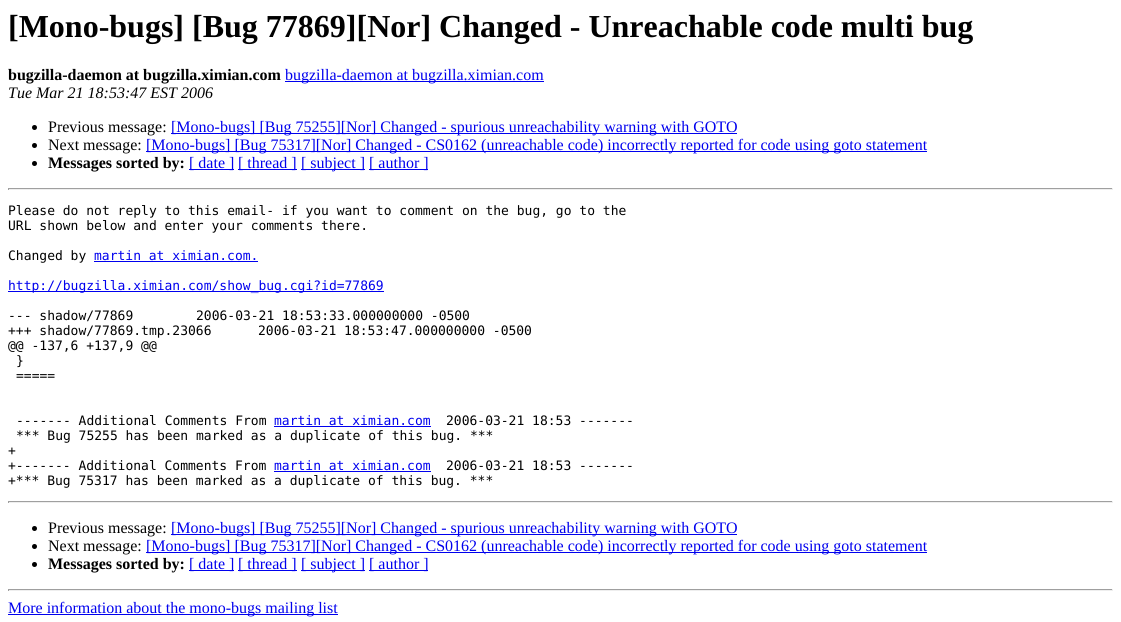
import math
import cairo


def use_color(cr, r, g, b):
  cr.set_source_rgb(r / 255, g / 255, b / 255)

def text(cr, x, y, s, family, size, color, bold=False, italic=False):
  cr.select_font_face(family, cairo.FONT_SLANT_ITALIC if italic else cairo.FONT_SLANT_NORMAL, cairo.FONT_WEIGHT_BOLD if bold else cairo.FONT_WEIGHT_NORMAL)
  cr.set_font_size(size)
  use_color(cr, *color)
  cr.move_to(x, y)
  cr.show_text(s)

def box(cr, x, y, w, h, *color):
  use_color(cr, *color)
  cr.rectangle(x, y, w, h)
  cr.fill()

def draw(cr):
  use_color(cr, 255, 255, 255)
  cr.paint()
  box(cr, 285, 81, 259, 1, 0, 0, 238)
  use_color(cr, 0, 0, 0)
  cr.arc(34.5, 127.5, 2.5, 0, 2 * math.pi)
  cr.fill()
  box(cr, 171, 133, 566, 1, 0, 0, 238)
  use_color(cr, 0, 0, 0)
  cr.arc(34.5, 145.5, 2.5, 0, 2 * math.pi)
  cr.fill()
  box(cr, 146, 151, 781, 1, 0, 0, 238)
  use_color(cr, 0, 0, 0)
  cr.arc(34.5, 163.5, 2.5, 0, 2 * math.pi)
  cr.fill()
  box(cr, 189, 169, 45, 1, 0, 0, 238)
  box(cr, 238, 169, 59, 1, 0, 0, 238)
  box(cr, 301, 169, 64, 1, 0, 0, 238)
  box(cr, 369, 169, 59, 1, 0, 0, 238)
  box(cr, 8, 188, 1105, 1, 159, 159, 159)
  box(cr, 1112, 188, 1, 2, 238, 238, 238)
  box(cr, 8, 189, 1105, 1, 238, 238, 238)
  box(cr, 8, 188, 1, 2, 159, 159, 159)
  box(cr, 94, 261, 164, 1, 0, 0, 238)
  box(cr, 8, 291, 376, 1, 0, 0, 238)
  box(cr, 274, 426, 157, 1, 0, 0, 238)
  box(cr, 274, 471, 157, 1, 0, 0, 238)
  box(cr, 8, 501, 1105, 1, 159, 159, 159)
  box(cr, 1112, 501, 1, 2, 238, 238, 238)
  box(cr, 8, 502, 1105, 1, 238, 238, 238)
  box(cr, 8, 501, 1, 2, 159, 159, 159)
  use_color(cr, 0, 0, 0)
  cr.arc(34.5, 528.5, 2.5, 0, 2 * math.pi)
  cr.fill()
  box(cr, 171, 534, 566, 1, 0, 0, 238)
  use_color(cr, 0, 0, 0)
  cr.arc(34.5, 546.5, 2.5, 0, 2 * math.pi)
  cr.fill()
  box(cr, 146, 552, 781, 1, 0, 0, 238)
  use_color(cr, 0, 0, 0)
  cr.arc(34.5, 564.5, 2.5, 0, 2 * math.pi)
  cr.fill()
  box(cr, 189, 570, 45, 1, 0, 0, 238)
  box(cr, 238, 570, 59, 1, 0, 0, 238)
  box(cr, 301, 570, 64, 1, 0, 0, 238)
  box(cr, 369, 570, 59, 1, 0, 0, 238)
  box(cr, 8, 589, 1105, 1, 159, 159, 159)
  box(cr, 1112, 589, 1, 2, 238, 238, 238)
  box(cr, 8, 590, 1105, 1, 238, 238, 238)
  box(cr, 8, 589, 1, 2, 159, 159, 159)
  box(cr, 8, 614, 330, 1, 0, 0, 238)
  text(cr, 8, 37, "[Mono-bugs] [Bug 77869][Nor] Changed - Unreachable code multi bug", "Liberation Serif", 32, (0, 0, 0), bold=True)
  text(cr, 8, 80, "bugzilla-daemon at bugzilla.ximian.com", "Liberation Serif", 16, (0, 0, 0), bold=True)
  text(cr, 285, 80, "bugzilla-daemon at bugzilla.ximian.com", "Liberation Serif", 16, (0, 0, 238))
  text(cr, 8, 98, "Tue Mar 21 18:53:47 EST 2006", "Liberation Serif", 16, (0, 0, 0), italic=True)
  text(cr, 48, 132, "Previous message:", "Liberation Serif", 16, (0, 0, 0))
  text(cr, 171, 132, "[Mono-bugs] [Bug 75255][Nor] Changed - spurious unreachability warning with GOTO", "Liberation Serif", 16, (0, 0, 238))
  text(cr, 48, 150, "Next message:", "Liberation Serif", 16, (0, 0, 0))
  text(cr, 146, 150, "[Mono-bugs] [Bug 75317][Nor] Changed - CS0162 (unreachable code) incorrectly reported for code using goto statement", "Liberation Serif", 16, (0, 0, 238))
  text(cr, 48, 168, "Messages sorted by:", "Liberation Serif", 16, (0, 0, 0), bold=True)
  text(cr, 189, 168, "[ date ]", "Liberation Serif", 16, (0, 0, 238))
  text(cr, 238, 168, "[ thread ]", "Liberation Serif", 16, (0, 0, 238))
  text(cr, 301, 168, "[ subject ]", "Liberation Serif", 16, (0, 0, 238))
  text(cr, 369, 168, "[ author ]", "Liberation Serif", 16, (0, 0, 238))
  text(cr, 8, 215, "Please do not reply to this email- if you want to comment on the bug, go to the", "DejaVu Sans Mono", 13, (0, 0, 0))
  text(cr, 8, 230, "URL shown below and enter your comments there.", "DejaVu Sans Mono", 13, (0, 0, 0))
  text(cr, 8, 260, "Changed by", "DejaVu Sans Mono", 13, (0, 0, 0))
  text(cr, 94, 260, "martin at ximian.com.", "DejaVu Sans Mono", 13, (0, 0, 238))
  text(cr, 8, 290, "http://bugzilla.ximian.com/show_bug.cgi?id=77869", "DejaVu Sans Mono", 13, (0, 0, 238))
  text(cr, 8, 320, "--- shadow/77869", "DejaVu Sans Mono", 13, (0, 0, 0))
  text(cr, 196, 320, "2006-03-21 18:53:33.000000000 -0500", "DejaVu Sans Mono", 13, (0, 0, 0))
  text(cr, 8, 335, "+++ shadow/77869.tmp.23066", "DejaVu Sans Mono", 13, (0, 0, 0))
  text(cr, 258, 335, "2006-03-21 18:53:47.000000000 -0500", "DejaVu Sans Mono", 13, (0, 0, 0))
  text(cr, 8, 350, "@@ -137,6 +137,9 @@", "DejaVu Sans Mono", 13, (0, 0, 0))
  text(cr, 16, 365, "}", "DejaVu Sans Mono", 13, (0, 0, 0))
  text(cr, 16, 380, "=====", "DejaVu Sans Mono", 13, (0, 0, 0))
  text(cr, 16, 425, "------- Additional Comments From", "DejaVu Sans Mono", 13, (0, 0, 0))
  text(cr, 274, 425, "martin at ximian.com", "DejaVu Sans Mono", 13, (0, 0, 238))
  text(cr, 446, 425, "2006-03-21 18:53 -------", "DejaVu Sans Mono", 13, (0, 0, 0))
  text(cr, 16, 440, "*** Bug 75255 has been marked as a duplicate of this bug. ***", "DejaVu Sans Mono", 13, (0, 0, 0))
  text(cr, 8, 455, "+", "DejaVu Sans Mono", 13, (0, 0, 0))
  text(cr, 8, 470, "+------- Additional Comments From", "DejaVu Sans Mono", 13, (0, 0, 0))
  text(cr, 274, 470, "martin at ximian.com", "DejaVu Sans Mono", 13, (0, 0, 238))
  text(cr, 446, 470, "2006-03-21 18:53 -------", "DejaVu Sans Mono", 13, (0, 0, 0))
  text(cr, 8, 485, "+*** Bug 75317 has been marked as a duplicate of this bug. ***", "DejaVu Sans Mono", 13, (0, 0, 0))
  text(cr, 48, 533, "Previous message:", "Liberation Serif", 16, (0, 0, 0))
  text(cr, 171, 533, "[Mono-bugs] [Bug 75255][Nor] Changed - spurious unreachability warning with GOTO", "Liberation Serif", 16, (0, 0, 238))
  text(cr, 48, 551, "Next message:", "Liberation Serif", 16, (0, 0, 0))
  text(cr, 146, 551, "[Mono-bugs] [Bug 75317][Nor] Changed - CS0162 (unreachable code) incorrectly reported for code using goto statement", "Liberation Serif", 16, (0, 0, 238))
  text(cr, 48, 569, "Messages sorted by:", "Liberation Serif", 16, (0, 0, 0), bold=True)
  text(cr, 189, 569, "[ date ]", "Liberation Serif", 16, (0, 0, 238))
  text(cr, 238, 569, "[ thread ]", "Liberation Serif", 16, (0, 0, 238))
  text(cr, 301, 569, "[ subject ]", "Liberation Serif", 16, (0, 0, 238))
  text(cr, 369, 569, "[ author ]", "Liberation Serif", 16, (0, 0, 238))
  text(cr, 8, 613, "More information about the mono-bugs mailing list", "Liberation Serif", 16, (0, 0, 238))


surface = cairo.ImageSurface(cairo.FORMAT_RGB24, 1121, 622)
cr = cairo.Context(surface)
options = cairo.FontOptions()
options.set_hint_metrics(cairo.HINT_METRICS_OFF)
options.set_hint_style(cairo.HINT_STYLE_NONE)
cr.set_font_options(options)
cr.set_miter_limit(4)
draw(cr)
surface.write_to_png("out.png")
